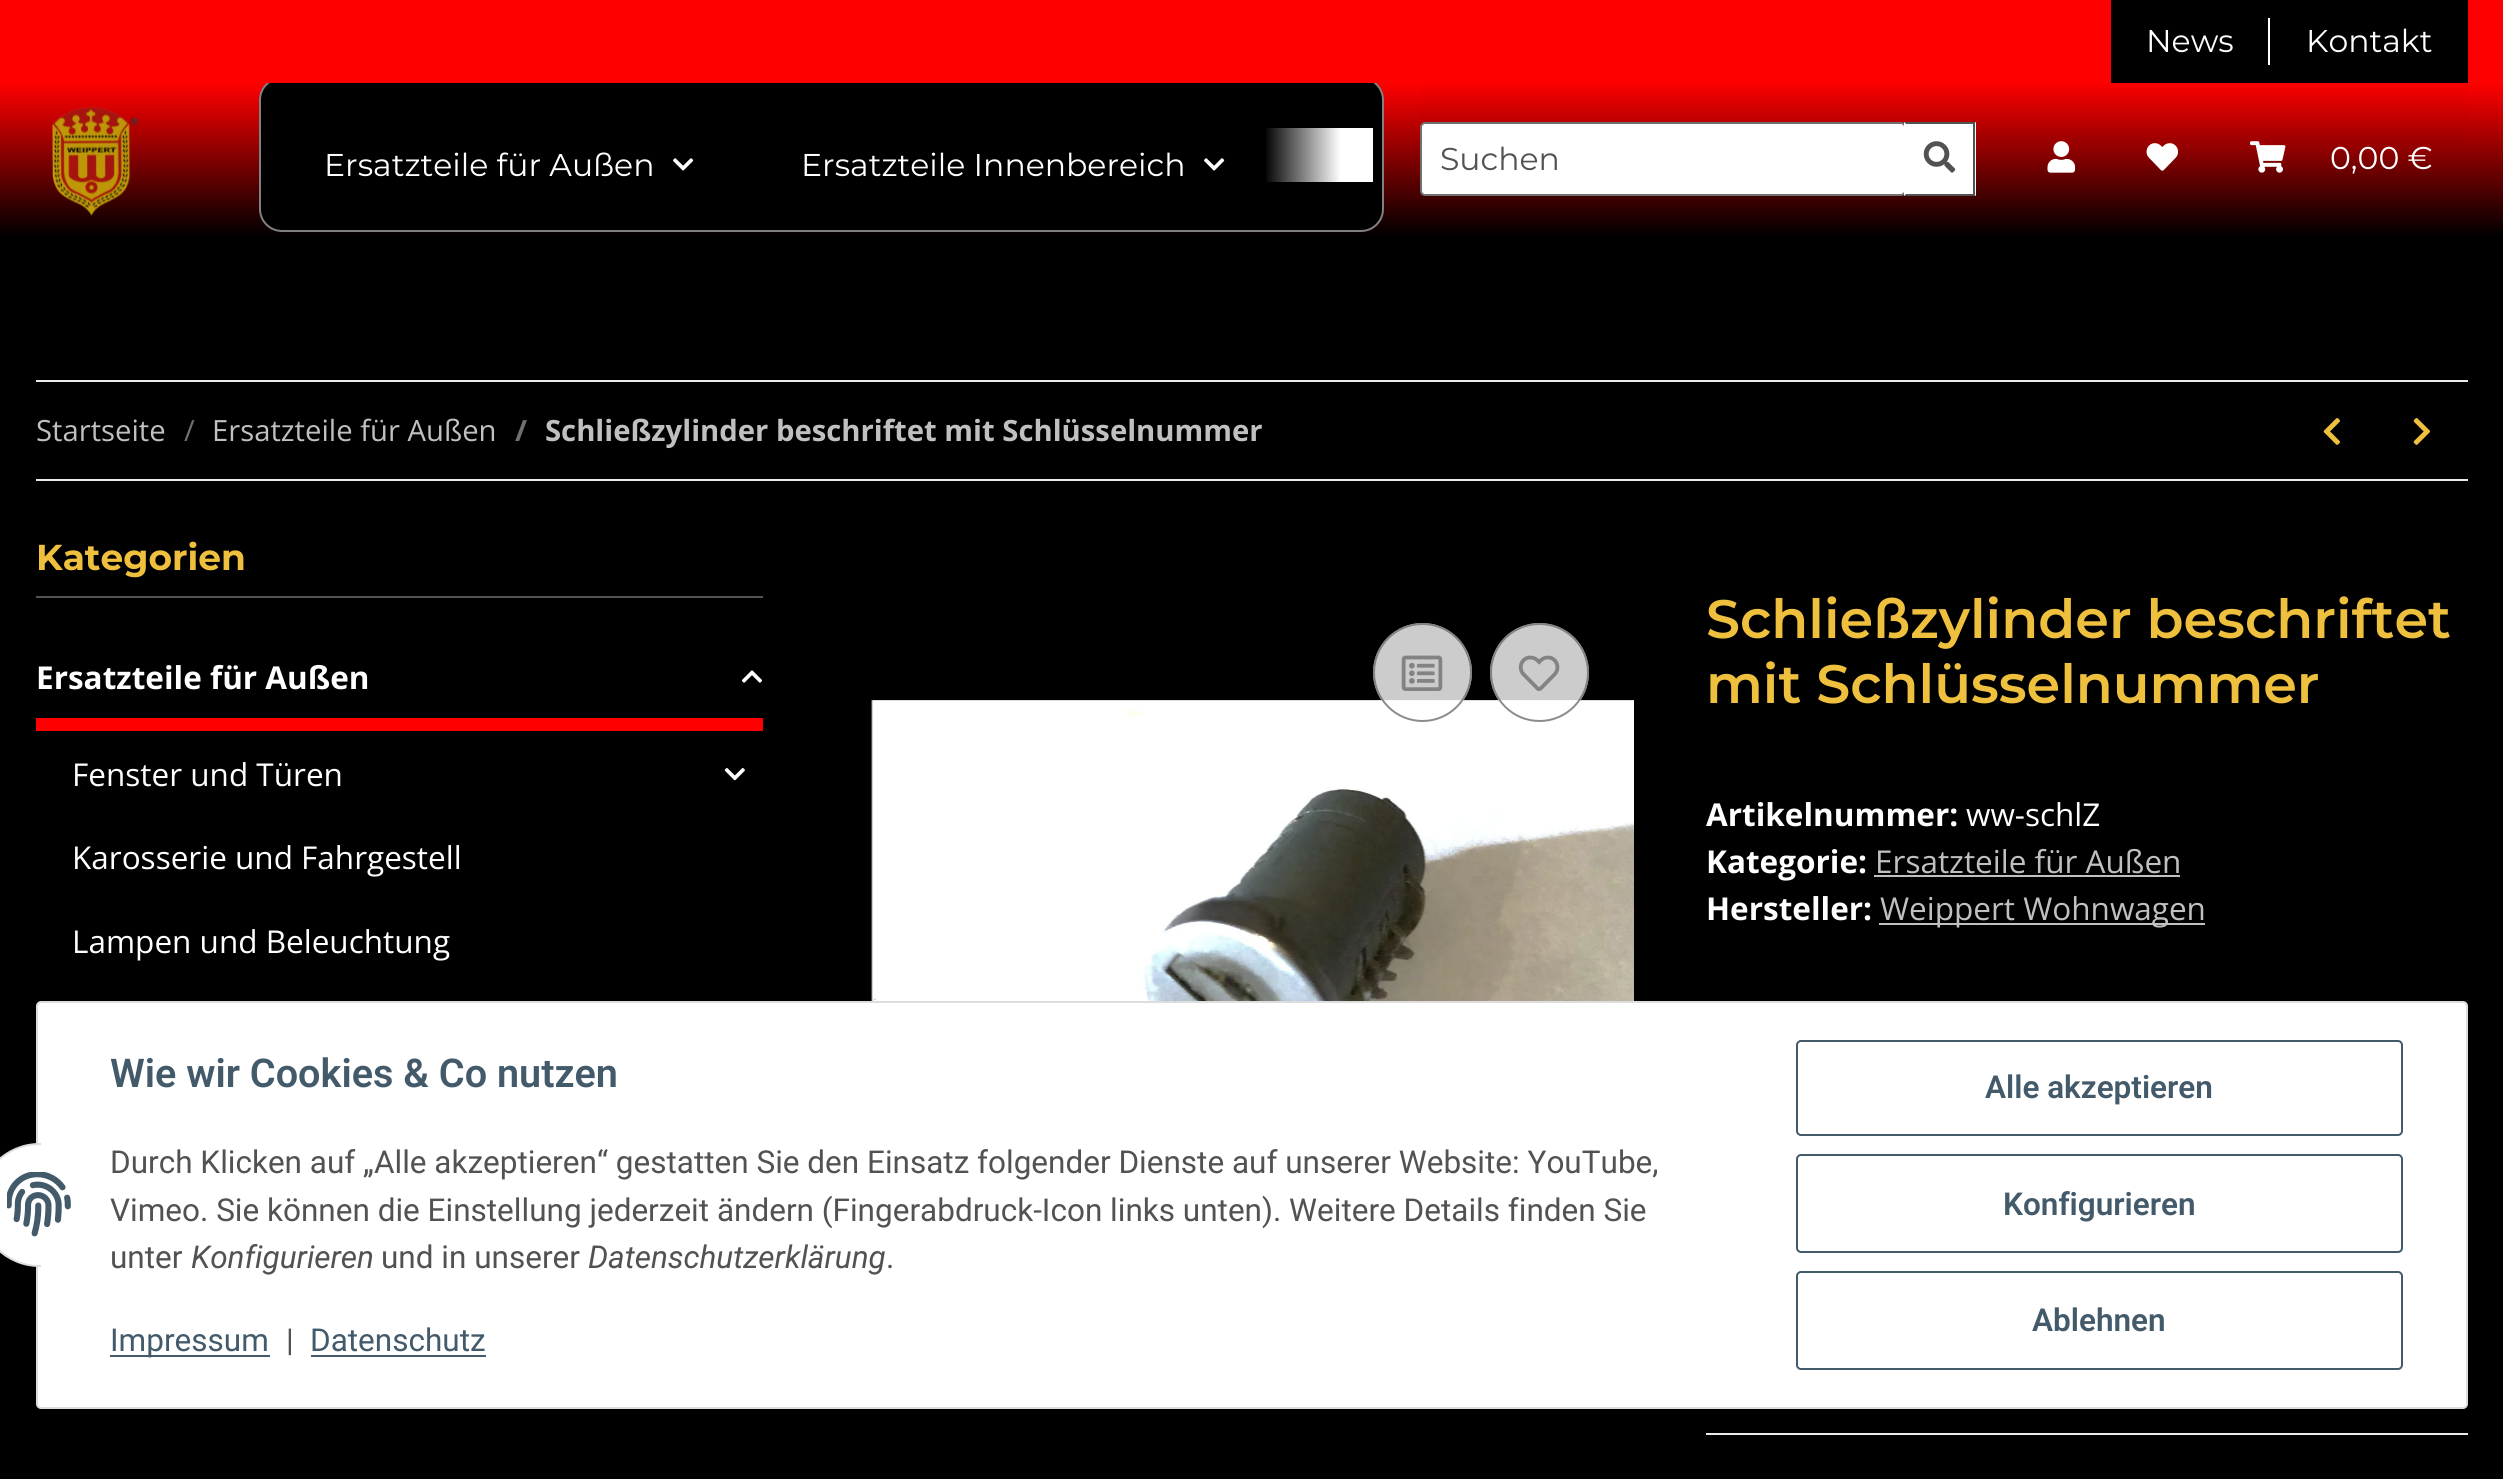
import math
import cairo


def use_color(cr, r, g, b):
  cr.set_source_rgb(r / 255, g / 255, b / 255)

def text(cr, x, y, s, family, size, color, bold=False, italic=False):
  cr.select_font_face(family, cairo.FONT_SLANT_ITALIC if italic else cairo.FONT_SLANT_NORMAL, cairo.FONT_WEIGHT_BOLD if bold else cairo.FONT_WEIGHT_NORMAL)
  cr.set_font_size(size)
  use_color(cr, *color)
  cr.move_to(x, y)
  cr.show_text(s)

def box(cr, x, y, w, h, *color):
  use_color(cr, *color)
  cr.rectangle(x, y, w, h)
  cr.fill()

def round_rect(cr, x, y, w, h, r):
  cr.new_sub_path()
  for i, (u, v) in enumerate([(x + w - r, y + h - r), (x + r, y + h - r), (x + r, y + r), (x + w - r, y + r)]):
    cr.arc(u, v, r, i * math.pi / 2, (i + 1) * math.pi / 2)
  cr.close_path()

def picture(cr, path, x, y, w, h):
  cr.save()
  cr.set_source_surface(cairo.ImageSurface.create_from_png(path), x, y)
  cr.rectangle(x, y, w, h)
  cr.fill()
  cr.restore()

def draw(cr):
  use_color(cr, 0, 0, 0)
  cr.paint()
  gradient = cairo.LinearGradient(1252, 83, 1252, 236)
  gradient.add_color_stop_rgba(0, 1, 0, 0, 1)
  gradient.add_color_stop_rgba(1, 0, 0, 0, 1)
  cr.set_source(gradient)
  cr.rectangle(0, 83, 2503, 152)
  cr.fill()
  use_color(cr, 0, 0, 0)
  round_rect(cr, 260, 78, 1123, 153, 22)
  cr.fill_preserve()
  use_color(cr, 128, 128, 128)
  cr.stroke()
  box(cr, 0, 0, 2503, 83, 255, 0, 0)
  box(cr, 2111, 0, 357, 83, 0, 0, 0)
  box(cr, 2268, 18, 2, 47, 255, 255, 255)
  picture(cr, "img_01.png", 52, 106, 87, 110)
  picture(cr, "img_02.png", 673, 158, 21, 13)
  picture(cr, "img_02.png", 1204, 158, 21, 13)
  gradient = cairo.LinearGradient(1265, 155, 1373, 155)
  gradient.add_color_stop_rgba(0, 1, 1, 1, 0.01)
  gradient.add_color_stop_rgba(0.7, 1, 1, 1, 1)
  cr.set_source(gradient)
  cr.rectangle(1266, 128, 107, 54)
  cr.fill()
  gradient = cairo.LinearGradient(1944, 81, 1944, 236)
  gradient.add_color_stop_rgba(0, 1, 0, 0, 1)
  gradient.add_color_stop_rgba(1, 0, 0, 0, 1)
  cr.set_source(gradient)
  cr.rectangle(1420, 83, 1048, 59)
  cr.fill()
  use_color(cr, 255, 255, 255)
  round_rect(cr, 1422, 124, 482, 70, 2)
  cr.fill()
  round_rect(cr, 1421, 123, 484, 72, 4)
  use_color(cr, 112, 112, 112)
  cr.stroke()
  box(cr, 1904, 122, 72, 74, 255, 255, 255)
  use_color(cr, 82, 82, 82)
  cr.new_path()
  cr.move_to(1904, 122)
  cr.line_to(1976, 122)
  cr.line_to(1973, 124)
  cr.line_to(1906, 124)
  cr.close_path()
  cr.fill()
  box(cr, 1973, 122, 2, 74, 82, 82, 82)
  cr.new_path()
  cr.move_to(1976, 196)
  cr.line_to(1904, 196)
  cr.line_to(1906, 194)
  cr.line_to(1973, 194)
  cr.close_path()
  cr.fill()
  picture(cr, "img_03.png", 1923, 141, 33, 32)
  picture(cr, "img_04.png", 2047, 141, 29, 32)
  picture(cr, "img_05.png", 2146, 143, 33, 28)
  picture(cr, "img_06.png", 2250, 141, 36, 32)
  box(cr, 36, 380, 2432, 2, 235, 235, 235)
  box(cr, 36, 479, 2432, 2, 235, 235, 235)
  picture(cr, "img_07.png", 2323, 418, 17, 27)
  picture(cr, "img_08.png", 2413, 418, 17, 27)
  box(cr, 36, 596, 727, 2, 82, 82, 82)
  box(cr, 36, 718, 727, 13, 255, 0, 0)
  picture(cr, "img_09.png", 741, 670, 21, 13)
  picture(cr, "img_10.png", 724, 768, 21, 13)
  picture(cr, "img_13.png", 871, 700, 763, 301)
  cr.set_source_rgba(1, 1, 1, 0.8)
  cr.arc(1422.5, 672.5, 49.5, 0, 2 * math.pi)
  cr.fill()
  cr.arc(1422.5, 672.5, 48.5, 0, 2 * math.pi)
  cr.set_source_rgba(0.439, 0.439, 0.439, 0.8)
  cr.stroke()
  picture(cr, "img_11.png", 1401, 655, 42, 36)
  cr.set_source_rgba(1, 1, 1, 0.8)
  cr.arc(1539.5, 672.5, 49.5, 0, 2 * math.pi)
  cr.fill()
  cr.arc(1539.5, 672.5, 48.5, 0, 2 * math.pi)
  cr.set_source_rgba(0.439, 0.439, 0.439, 0.8)
  cr.stroke()
  picture(cr, "img_12.png", 1518, 655, 42, 36)
  box(cr, 1874, 875, 306, 2, 192, 192, 192)
  box(cr, 1879, 923, 326, 2, 192, 192, 192)
  box(cr, 1706, 1433, 762, 2, 235, 235, 235)
  use_color(cr, 255, 255, 255)
  round_rect(cr, 37, 1002, 2430, 406, 4)
  cr.fill_preserve()
  use_color(cr, 221, 221, 221)
  cr.stroke()
  use_color(cr, 255, 255, 255)
  round_rect(cr, -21, 1144, 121, 122, 60.5)
  cr.fill_preserve()
  use_color(cr, 221, 221, 221)
  cr.stroke()
  box(cr, 41, 1143, 60, 124, 255, 255, 255)
  picture(cr, "img_14.png", 7, 1172, 64, 65)
  box(cr, 110, 1355, 160, 2, 67, 90, 107)
  box(cr, 311, 1355, 175, 2, 67, 90, 107)
  round_rect(cr, 1797, 1041, 605, 94, 4)
  cr.stroke()
  round_rect(cr, 1797, 1155, 605, 97, 4)
  cr.stroke()
  round_rect(cr, 1797, 1272, 605, 97, 4)
  cr.stroke()
  text(cr, 2146, 52, "News", "Montserrat", 31.5, (255, 255, 255))
  text(cr, 2306, 52, "Kontakt", "Montserrat", 31.5, (255, 255, 255))
  text(cr, 324, 176, "Ersatzteile für Außen", "Montserrat", 31.5, (255, 255, 255))
  text(cr, 801, 176, "Ersatzteile Innenbereich", "Montserrat", 31.5, (255, 255, 255))
  text(cr, 1440, 170, "Suchen", "Montserrat", 31.5, (82, 82, 82))
  text(cr, 2330, 169, "0,00 €", "Montserrat", 31.5, (255, 255, 255))
  text(cr, 36, 441, "Startseite", "Open Sans", 29.25, (192, 192, 192))
  text(cr, 184, 441, "/", "Open Sans", 29.25, (112, 112, 112))
  text(cr, 212, 441, "Ersatzteile für Außen", "Open Sans", 29.25, (192, 192, 192))
  text(cr, 515, 441, "/", "Open Sans", 29.25, (112, 112, 112), bold=True)
  text(cr, 545, 441, "Schließzylinder beschriftet mit Schlüsselnummer", "Open Sans", 29.25, (192, 192, 192), bold=True)
  text(cr, 36, 570, "Kategorien", "Montserrat", 36, (239, 192, 61), bold=True)
  text(cr, 36, 689, "Ersatzteile für Außen", "Open Sans", 31.5, (255, 255, 255), bold=True)
  text(cr, 72, 786, "Fenster und Türen", "Open Sans", 31.5, (255, 255, 255))
  text(cr, 72, 869, "Karosserie und Fahrgestell", "Open Sans", 31.5, (255, 255, 255))
  text(cr, 72, 953, "Lampen und Beleuchtung", "Open Sans", 31.5, (255, 255, 255))
  text(cr, 1706, 638, "Schließzylinder beschriftet", "Montserrat SemiBold", 54, (239, 192, 61))
  text(cr, 1706, 703, "mit Schlüsselnummer", "Montserrat SemiBold", 54, (239, 192, 61))
  text(cr, 1706, 826, "Artikelnummer:", "Open Sans", 31.5, (255, 255, 255), bold=True)
  text(cr, 1966, 826, "ww-schlZ", "Open Sans", 31.5, (255, 255, 255))
  text(cr, 1706, 873, "Kategorie:", "Open Sans", 31.5, (255, 255, 255), bold=True)
  text(cr, 1875, 873, "Ersatzteile für Außen", "Open Sans", 31.5, (192, 192, 192))
  text(cr, 1706, 920, "Hersteller:", "Open Sans", 31.5, (255, 255, 255), bold=True)
  text(cr, 1880, 920, "Weippert Wohnwagen", "Open Sans", 31.5, (192, 192, 192))
  text(cr, 110, 1087, "Wie wir Cookies & Co nutzen", "Roboto SemiBold", 39.6, (67, 90, 107))
  text(cr, 110, 1173, "Durch Klicken auf „Alle akzeptieren“ gestatten Sie den Einsatz folgender Dienste auf unserer Website: YouTube,", "Roboto", 31.5, (82, 82, 82))
  text(cr, 110, 1221, "Vimeo. Sie können die Einstellung jederzeit ändern (Fingerabdruck-Icon links unten). Weitere Details finden Sie", "Roboto", 31.5, (82, 82, 82))
  text(cr, 110, 1268, "unter", "Roboto", 31.5, (82, 82, 82))
  text(cr, 191, 1268, "Konfigurieren", "Roboto", 31.5, (82, 82, 82), italic=True)
  text(cr, 381, 1268, "und in unserer", "Roboto", 31.5, (82, 82, 82))
  text(cr, 588, 1268, "Datenschutzerklärung", "Roboto", 31.5, (82, 82, 82), italic=True)
  text(cr, 886, 1268, ".", "Roboto", 31.5, (82, 82, 82))
  text(cr, 110, 1351, "Impressum", "Roboto", 31.5, (67, 90, 107))
  text(cr, 286, 1351, "|", "Roboto", 31.5, (82, 82, 82))
  text(cr, 310, 1351, "Datenschutz", "Roboto", 31.5, (67, 90, 107))
  text(cr, 1985, 1098, "Alle akzeptieren", "Roboto SemiBold", 31.5, (67, 90, 107))
  text(cr, 2003, 1215, "Konfigurieren", "Roboto SemiBold", 31.5, (67, 90, 107))
  text(cr, 2032, 1331, "Ablehnen", "Roboto SemiBold", 31.5, (67, 90, 107))


surface = cairo.ImageSurface(cairo.FORMAT_RGB24, 2503, 1479)
cr = cairo.Context(surface)
options = cairo.FontOptions()
options.set_hint_metrics(cairo.HINT_METRICS_OFF)
options.set_hint_style(cairo.HINT_STYLE_NONE)
cr.set_font_options(options)
cr.set_miter_limit(4)
draw(cr)
surface.write_to_png("out.png")
